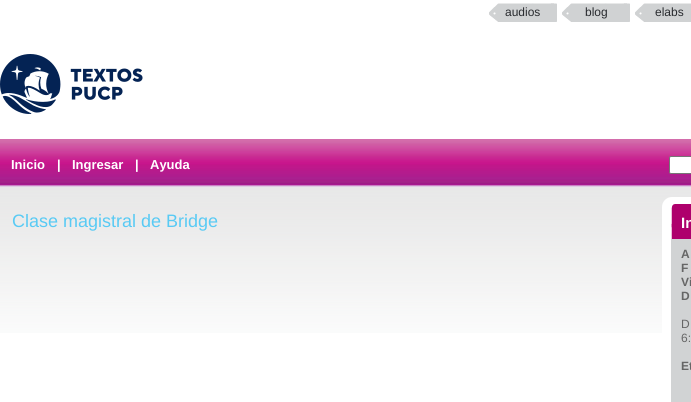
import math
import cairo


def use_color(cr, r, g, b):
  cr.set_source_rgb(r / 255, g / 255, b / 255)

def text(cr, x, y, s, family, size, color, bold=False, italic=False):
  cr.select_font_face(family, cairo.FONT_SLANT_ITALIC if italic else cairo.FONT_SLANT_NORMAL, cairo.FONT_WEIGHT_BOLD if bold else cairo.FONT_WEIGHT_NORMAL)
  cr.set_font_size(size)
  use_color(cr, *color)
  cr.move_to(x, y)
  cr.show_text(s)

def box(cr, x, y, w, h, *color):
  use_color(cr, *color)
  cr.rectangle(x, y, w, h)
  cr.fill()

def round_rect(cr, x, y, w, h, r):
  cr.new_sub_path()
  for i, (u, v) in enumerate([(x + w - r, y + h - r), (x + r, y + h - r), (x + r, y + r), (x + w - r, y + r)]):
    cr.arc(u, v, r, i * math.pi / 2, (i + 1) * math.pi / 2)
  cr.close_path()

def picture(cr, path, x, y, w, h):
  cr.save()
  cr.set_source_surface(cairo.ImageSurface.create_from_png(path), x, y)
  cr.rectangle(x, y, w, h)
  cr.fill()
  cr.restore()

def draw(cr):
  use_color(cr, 255, 255, 255)
  cr.paint()
  picture(cr, "img_01.png", 489, 3, 68, 19)
  picture(cr, "img_01.png", 562, 3, 68, 19)
  picture(cr, "img_02.png", 635, 3, 56, 19)
  picture(cr, "img_03.png", 0, 54, 143, 60)
  picture(cr, "img_04.png", 0, 139, 691, 48)
  use_color(cr, 255, 255, 255)
  round_rect(cr, 669.5, 156.5, 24, 17, 1.5)
  cr.fill_preserve()
  use_color(cr, 118, 118, 118)
  cr.set_line_width(1)
  cr.stroke()
  picture(cr, "img_05.png", 0, 187, 691, 146)
  use_color(cr, 255, 255, 255)
  round_rect(cr, 662, 197, 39, 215, 10)
  cr.fill()
  picture(cr, "img_06.png", 671, 204, 20, 35)
  box(cr, 671, 239, 20, 163, 209, 211, 212)
  text(cr, 505, 16, "audios", "Liberation Sans", 12, (41, 43, 47))
  text(cr, 585, 16, "blog", "Liberation Sans", 12, (41, 43, 47))
  text(cr, 655, 16, "elabs", "Liberation Sans", 12, (41, 43, 47))
  text(cr, 11, 169, "Inicio", "Liberation Sans", 13, (255, 255, 255), bold=True)
  text(cr, 57, 169, "|", "Liberation Sans", 13, (255, 255, 255), bold=True)
  text(cr, 72, 169, "Ingresar", "Liberation Sans", 13, (255, 255, 255), bold=True)
  text(cr, 135, 169, "|", "Liberation Sans", 13, (255, 255, 255), bold=True)
  text(cr, 150, 169, "Ayuda", "Liberation Sans", 13, (255, 255, 255), bold=True)
  text(cr, 12, 227, "Clase magistral de Bridge", "Liberation Sans", 18, (88, 202, 244))
  text(cr, 681, 228, "In", "Liberation Sans", 15, (255, 255, 255), bold=True)
  text(cr, 681, 258, "A", "Liberation Sans", 12, (102, 102, 102), bold=True)
  text(cr, 681, 272, "F", "Liberation Sans", 12, (102, 102, 102), bold=True)
  text(cr, 681, 286, "Vi", "Liberation Sans", 12, (102, 102, 102), bold=True)
  text(cr, 681, 300, "D", "Liberation Sans", 12, (102, 102, 102), bold=True)
  text(cr, 681, 328, "D", "Liberation Sans", 12, (102, 102, 102))
  text(cr, 681, 342, "6:", "Liberation Sans", 12, (102, 102, 102))
  text(cr, 681, 370, "Et", "Liberation Sans", 12, (102, 102, 102), bold=True)


surface = cairo.ImageSurface(cairo.FORMAT_RGB24, 691, 402)
cr = cairo.Context(surface)
options = cairo.FontOptions()
options.set_hint_metrics(cairo.HINT_METRICS_OFF)
options.set_hint_style(cairo.HINT_STYLE_NONE)
cr.set_font_options(options)
cr.set_miter_limit(4)
draw(cr)
surface.write_to_png("out.png")
